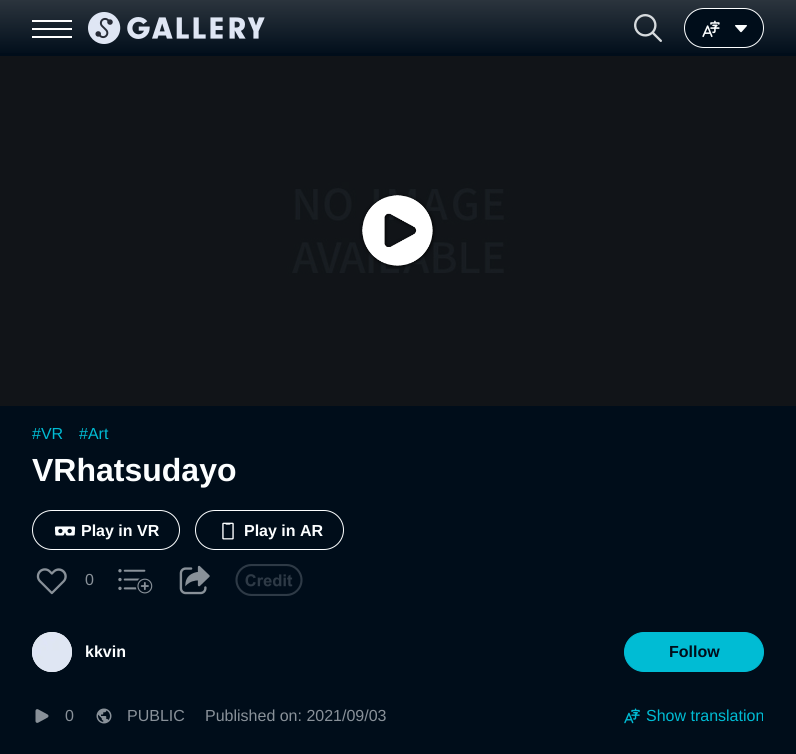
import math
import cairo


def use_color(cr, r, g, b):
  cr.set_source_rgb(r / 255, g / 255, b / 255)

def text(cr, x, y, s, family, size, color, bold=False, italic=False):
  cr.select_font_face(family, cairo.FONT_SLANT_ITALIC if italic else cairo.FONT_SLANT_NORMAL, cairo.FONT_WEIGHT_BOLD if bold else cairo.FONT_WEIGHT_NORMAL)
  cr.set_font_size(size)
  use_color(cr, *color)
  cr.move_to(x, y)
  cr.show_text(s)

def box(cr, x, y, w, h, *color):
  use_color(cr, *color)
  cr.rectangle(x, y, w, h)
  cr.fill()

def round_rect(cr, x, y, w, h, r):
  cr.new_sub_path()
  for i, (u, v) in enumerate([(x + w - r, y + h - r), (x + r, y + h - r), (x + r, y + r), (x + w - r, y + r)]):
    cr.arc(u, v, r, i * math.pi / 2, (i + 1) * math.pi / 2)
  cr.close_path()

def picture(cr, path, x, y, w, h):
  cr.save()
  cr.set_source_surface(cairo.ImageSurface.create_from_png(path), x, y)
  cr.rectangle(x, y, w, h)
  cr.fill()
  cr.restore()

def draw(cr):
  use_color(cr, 0, 13, 26)
  cr.paint()
  gradient = cairo.LinearGradient(398, 0, 398, 56)
  gradient.add_color_stop_rgba(0, 0.169, 0.204, 0.239, 1)
  gradient.add_color_stop_rgba(1, 0, 0.051, 0.102, 1)
  cr.set_source(gradient)
  cr.rectangle(0, 0, 796, 53)
  cr.fill()
  box(cr, 32, 20, 40, 2, 255, 255, 255)
  box(cr, 32, 28, 40, 2, 255, 255, 255)
  box(cr, 32, 36, 40, 2, 255, 255, 255)
  picture(cr, "img_01.png", 88, 12, 177, 32)
  picture(cr, "img_02.png", 634, 14, 28, 28)
  use_color(cr, 0, 13, 26)
  round_rect(cr, 684.5, 8.5, 79, 39, 19.5)
  cr.fill_preserve()
  use_color(cr, 252, 254, 255)
  cr.set_line_width(1)
  cr.stroke()
  picture(cr, "img_03.png", 702, 20, 18, 18)
  picture(cr, "img_04.png", 735, 25, 12, 8)
  picture(cr, "img_05.png", 0, 56, 796, 350)
  round_rect(cr, 32.5, 510.5, 147, 39, 19.5)
  cr.stroke()
  picture(cr, "img_06.png", 54, 526, 22, 10)
  round_rect(cr, 195.5, 510.5, 148, 39, 19.5)
  cr.stroke()
  picture(cr, "img_07.png", 222, 522, 12, 18)
  picture(cr, "img_08.png", 36, 568, 31, 27)
  picture(cr, "img_09.png", 118, 569, 35, 25)
  picture(cr, "img_10.png", 179, 565, 31, 30)
  picture(cr, "img_11.png", 235, 564, 68, 32)
  use_color(cr, 255, 255, 255)
  cr.arc(52, 652, 20, 0, 2 * math.pi)
  cr.fill()
  picture(cr, "img_12.png", 32, 632, 40, 40)
  use_color(cr, 0, 188, 212)
  round_rect(cr, 624.5, 632.5, 139, 39, 19.5)
  cr.fill_preserve()
  cr.stroke()
  picture(cr, "img_13.png", 35, 709, 14, 14)
  picture(cr, "img_14.png", 96, 708, 16, 16)
  picture(cr, "img_15.png", 624, 708, 16, 16)
  text(cr, 32, 439, "#VR", "Liberation Sans", 16, (0, 188, 212))
  text(cr, 79, 439, "#Art", "Liberation Sans", 16, (0, 188, 212))
  text(cr, 32, 481, "VRhatsudayo", "Liberation Sans", 32, (252, 254, 255), bold=True)
  text(cr, 81, 536, "Play in VR", "Liberation Sans", 16, (252, 254, 255), bold=True)
  text(cr, 244, 536, "Play in AR", "Liberation Sans", 16, (252, 254, 255), bold=True)
  text(cr, 85, 585, "0", "Liberation Sans", 16, (137, 145, 153))
  text(cr, 85, 657, "kkvin", "Liberation Sans", 16, (252, 254, 255), bold=True)
  text(cr, 669, 657, "Follow", "Liberation Sans", 16, (0, 13, 26), bold=True)
  text(cr, 65, 721, "0", "Liberation Sans", 16, (137, 145, 153))
  text(cr, 127, 721, "PUBLIC", "Liberation Sans", 16, (137, 145, 153))
  text(cr, 205, 721, "Published on: 2021/09/03", "Liberation Sans", 16, (137, 145, 153))
  text(cr, 646, 721, "Show translation", "Liberation Sans", 16, (0, 188, 212))


surface = cairo.ImageSurface(cairo.FORMAT_RGB24, 796, 754)
cr = cairo.Context(surface)
options = cairo.FontOptions()
options.set_hint_metrics(cairo.HINT_METRICS_OFF)
options.set_hint_style(cairo.HINT_STYLE_NONE)
cr.set_font_options(options)
cr.set_miter_limit(4)
draw(cr)
surface.write_to_png("out.png")
